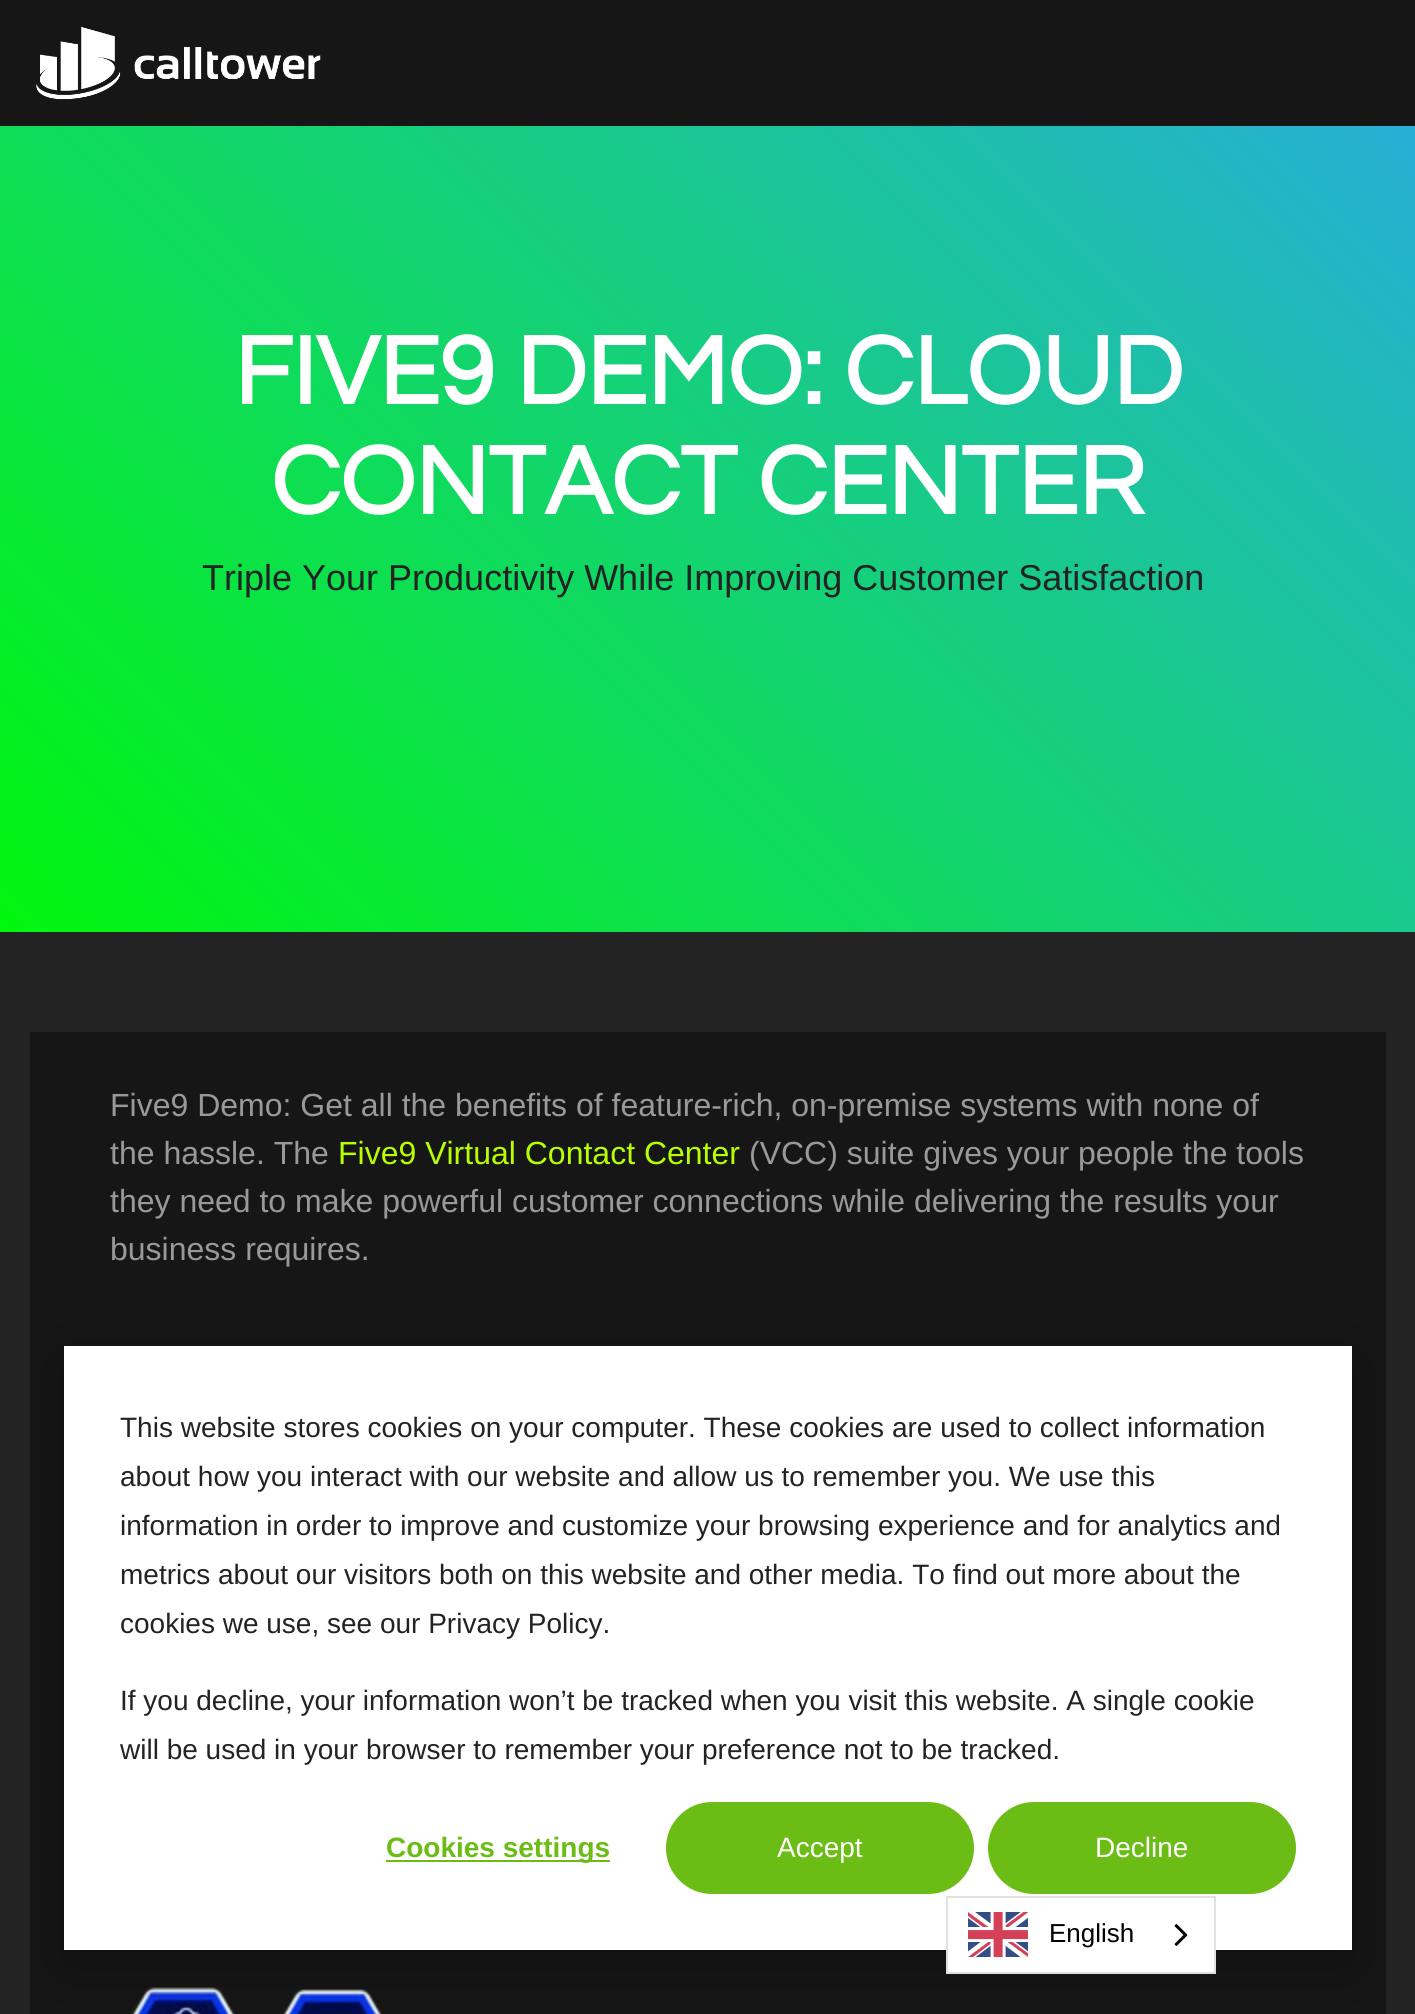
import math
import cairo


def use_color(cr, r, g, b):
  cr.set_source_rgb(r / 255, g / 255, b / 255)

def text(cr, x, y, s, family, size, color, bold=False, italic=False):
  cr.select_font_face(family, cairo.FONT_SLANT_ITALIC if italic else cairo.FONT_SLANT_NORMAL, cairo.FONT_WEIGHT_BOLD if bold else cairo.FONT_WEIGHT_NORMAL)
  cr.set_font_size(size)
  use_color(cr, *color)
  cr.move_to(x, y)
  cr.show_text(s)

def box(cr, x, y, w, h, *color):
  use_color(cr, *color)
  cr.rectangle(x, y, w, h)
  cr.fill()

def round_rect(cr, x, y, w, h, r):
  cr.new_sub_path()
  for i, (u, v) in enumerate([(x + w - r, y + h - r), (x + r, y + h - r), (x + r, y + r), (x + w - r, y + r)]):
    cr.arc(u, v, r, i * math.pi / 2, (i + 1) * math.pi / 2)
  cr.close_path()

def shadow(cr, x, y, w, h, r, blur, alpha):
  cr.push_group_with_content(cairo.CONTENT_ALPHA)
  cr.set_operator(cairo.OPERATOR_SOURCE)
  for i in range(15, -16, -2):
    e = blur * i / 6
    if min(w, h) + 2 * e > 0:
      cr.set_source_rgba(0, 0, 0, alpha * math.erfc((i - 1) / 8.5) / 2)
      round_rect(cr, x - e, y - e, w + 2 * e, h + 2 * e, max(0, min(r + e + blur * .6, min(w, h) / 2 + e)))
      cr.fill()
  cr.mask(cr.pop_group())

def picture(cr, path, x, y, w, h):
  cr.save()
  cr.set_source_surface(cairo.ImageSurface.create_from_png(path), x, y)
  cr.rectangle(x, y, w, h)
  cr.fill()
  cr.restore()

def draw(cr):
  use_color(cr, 255, 255, 255)
  cr.paint()
  box(cr, 0, 0, 1415, 126, 22, 22, 22)
  picture(cr, "img_01.png", 36, 27, 285, 73)
  gradient = cairo.LinearGradient(121, 1053, 1295, -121)
  gradient.add_color_stop_rgba(0, 0, 0.969, 0.051, 1)
  gradient.add_color_stop_rgba(1, 0.161, 0.671, 0.886, 1)
  cr.set_source(gradient)
  cr.rectangle(0, 126, 1415, 806)
  cr.fill()
  box(cr, 0, 932, 1415, 1082, 35, 35, 35)
  box(cr, 30, 1032, 1356, 982, 22, 22, 22)
  picture(cr, "img_02.png", 131, 1987, 251, 27)
  use_color(cr, 0, 0, 0)
  shadow(cr, 64, 1362, 1288, 604, 0, 28, 0.28)
  box(cr, 64, 1346, 1288, 604, 255, 255, 255)
  box(cr, 386, 1860, 224, 2, 107, 188, 21)
  round_rect(cr, 667, 1803, 306, 90, 45)
  cr.fill_preserve()
  cr.stroke()
  round_rect(cr, 989, 1803, 306, 90, 45)
  cr.fill_preserve()
  cr.stroke()
  box(cr, 948, 1950, 266, 22, 255, 255, 255)
  cr.rectangle(947, 1897, 268, 76)
  use_color(cr, 224, 224, 224)
  cr.stroke()
  picture(cr, "img_03.png", 968, 1912, 60, 45)
  picture(cr, "img_04.png", 1174, 1924, 14, 22)
  text(cr, 234, 404, "FIVE9 DEMO: CLOUD", "Questrial", 100, (255, 255, 255), bold=True)
  text(cr, 271, 514, "CONTACT CENTER", "Questrial", 100, (255, 255, 255), bold=True)
  text(cr, 202, 590, "Triple Your Productivity While Improving Customer Satisfaction", "Liberation Sans", 36, (35, 35, 35))
  text(cr, 110, 1116, "Five9 Demo: Get all the benefits of feature-rich, on-premise systems with none of", "Liberation Sans", 32, (153, 153, 153))
  text(cr, 110, 1164, "the hassle. The", "Liberation Sans", 32, (153, 153, 153))
  text(cr, 338, 1164, "Five9 Virtual Contact Center", "Liberation Sans", 32, (183, 255, 0))
  text(cr, 749, 1164, "(VCC) suite gives your people the tools", "Liberation Sans", 32, (153, 153, 153))
  text(cr, 110, 1212, "they need to make powerful customer connections while delivering the results your", "Liberation Sans", 32, (153, 153, 153))
  text(cr, 110, 1260, "business requires.", "Liberation Sans", 32, (153, 153, 153))
  text(cr, 120, 1437, "This website stores cookies on your computer. These cookies are used to collect information", "Liberation Sans", 28, (35, 35, 35))
  text(cr, 120, 1486, "about how you interact with our website and allow us to remember you. We use this", "Liberation Sans", 28, (35, 35, 35))
  text(cr, 120, 1535, "information in order to improve and customize your browsing experience and for analytics and", "Liberation Sans", 28, (35, 35, 35))
  text(cr, 120, 1584, "metrics about our visitors both on this website and other media. To find out more about the", "Liberation Sans", 28, (35, 35, 35))
  text(cr, 120, 1633, "cookies we use, see our Privacy Policy.", "Liberation Sans", 28, (35, 35, 35))
  text(cr, 120, 1710, "If you decline, your information won’t be tracked when you visit this website. A single cookie", "Liberation Sans", 28, (35, 35, 35))
  text(cr, 120, 1759, "will be used in your browser to remember your preference not to be tracked.", "Liberation Sans", 28, (35, 35, 35))
  text(cr, 386, 1857, "Cookies settings", "Liberation Sans", 28, (107, 188, 21), bold=True)
  text(cr, 777, 1857, "Accept", "Liberation Sans", 28, (255, 255, 255))
  text(cr, 1095, 1857, "Decline", "Liberation Sans", 28, (255, 255, 255))
  text(cr, 1049, 1942, "English", "Liberation Sans", 26, (0, 0, 0))


surface = cairo.ImageSurface(cairo.FORMAT_RGB24, 1415, 2014)
cr = cairo.Context(surface)
options = cairo.FontOptions()
options.set_hint_metrics(cairo.HINT_METRICS_OFF)
options.set_hint_style(cairo.HINT_STYLE_NONE)
cr.set_font_options(options)
cr.set_miter_limit(4)
draw(cr)
surface.write_to_png("out.png")
